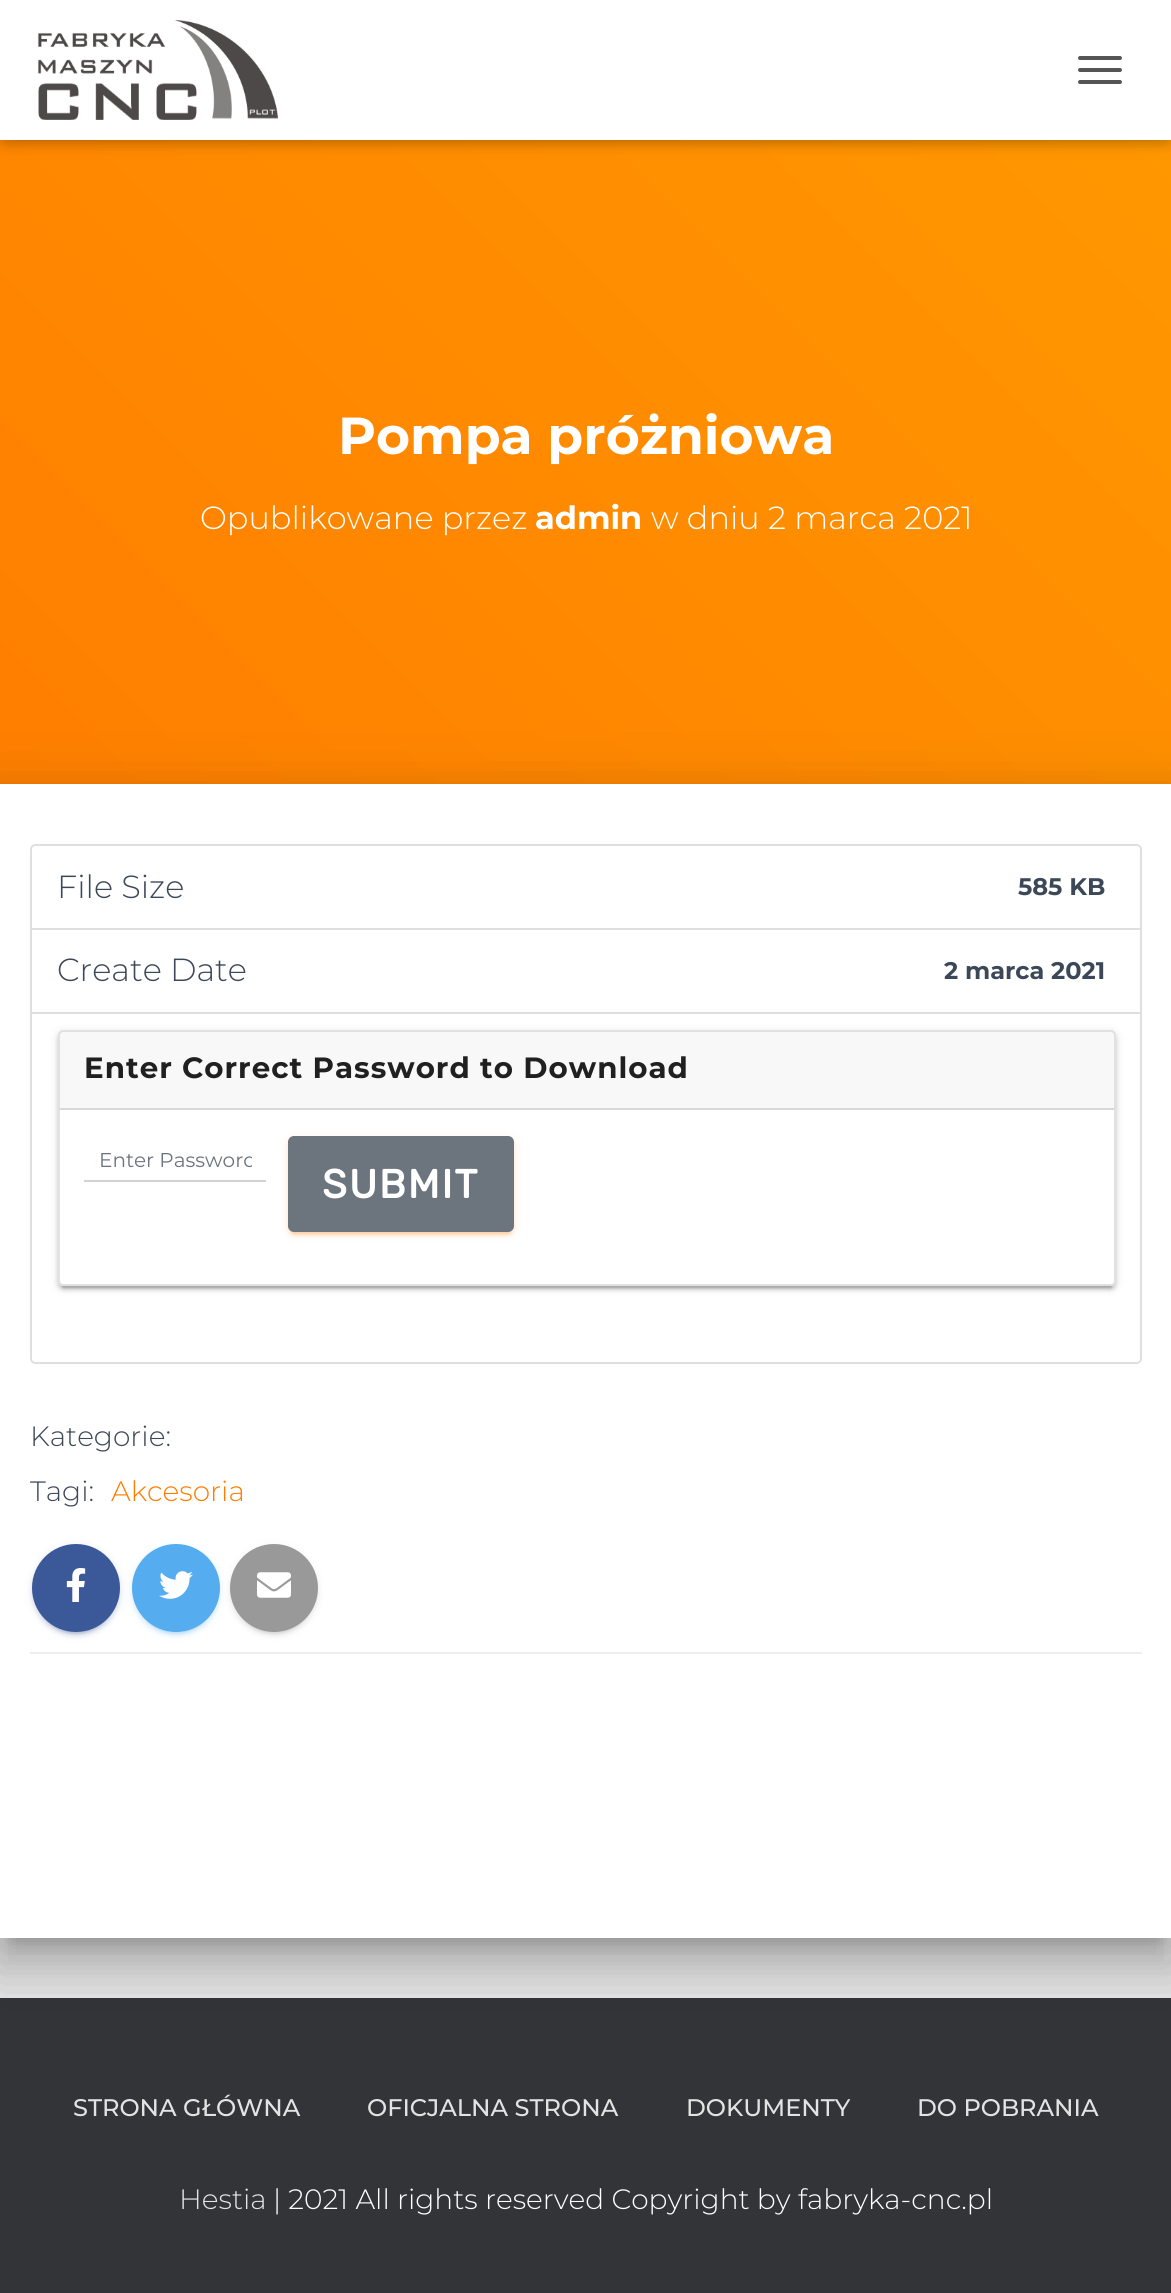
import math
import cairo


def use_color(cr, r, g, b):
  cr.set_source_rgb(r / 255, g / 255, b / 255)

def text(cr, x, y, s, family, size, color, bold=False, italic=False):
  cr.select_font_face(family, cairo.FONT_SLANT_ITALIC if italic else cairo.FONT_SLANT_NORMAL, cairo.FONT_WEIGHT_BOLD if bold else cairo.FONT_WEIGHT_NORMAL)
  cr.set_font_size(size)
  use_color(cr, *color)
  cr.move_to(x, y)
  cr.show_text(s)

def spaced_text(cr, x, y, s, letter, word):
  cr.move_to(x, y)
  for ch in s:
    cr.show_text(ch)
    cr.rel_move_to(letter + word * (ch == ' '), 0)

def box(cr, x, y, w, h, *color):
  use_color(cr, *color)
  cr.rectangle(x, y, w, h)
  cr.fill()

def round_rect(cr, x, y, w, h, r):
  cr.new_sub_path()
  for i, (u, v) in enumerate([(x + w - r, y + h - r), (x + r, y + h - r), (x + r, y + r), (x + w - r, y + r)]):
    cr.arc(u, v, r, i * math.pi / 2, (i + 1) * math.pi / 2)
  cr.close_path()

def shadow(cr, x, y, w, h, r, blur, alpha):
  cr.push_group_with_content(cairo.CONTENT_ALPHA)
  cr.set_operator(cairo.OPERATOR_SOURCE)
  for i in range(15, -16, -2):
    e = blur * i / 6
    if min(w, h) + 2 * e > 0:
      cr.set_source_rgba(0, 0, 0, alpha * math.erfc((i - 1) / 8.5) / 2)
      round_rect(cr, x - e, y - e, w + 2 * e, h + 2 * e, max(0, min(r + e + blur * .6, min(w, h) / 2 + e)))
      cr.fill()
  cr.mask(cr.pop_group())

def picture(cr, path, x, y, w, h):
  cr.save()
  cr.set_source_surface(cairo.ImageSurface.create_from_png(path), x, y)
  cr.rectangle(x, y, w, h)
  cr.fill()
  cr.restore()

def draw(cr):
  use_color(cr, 229, 229, 229)
  cr.paint()
  gradient = cairo.LinearGradient(67, 971, 1105, -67)
  gradient.add_color_stop_rgba(0, 1, 0.49, 0, 1)
  gradient.add_color_stop_rgba(1, 1, 0.6, 0, 1)
  cr.set_source(gradient)
  cr.rectangle(0, 140, 1171, 644)
  cr.fill()
  use_color(cr, 0, 0, 0)
  shadow(cr, 4, 12, 1164, 132, 0, 5, 0.1)
  shadow(cr, 0, 2, 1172, 140, 0, 10, 0.12)
  shadow(cr, 12, 14, 1148, 116, 0, 10, 0.42)
  box(cr, 0, 0, 1171, 140, 255, 255, 255)
  picture(cr, "img_01.png", 37, 20, 241, 100)
  use_color(cr, 85, 85, 85)
  round_rect(cr, 1078, 56, 44, 4, 2)
  cr.fill()
  round_rect(cr, 1078, 68, 44, 4, 2)
  cr.fill()
  round_rect(cr, 1078, 80, 44, 4, 2)
  cr.fill()
  use_color(cr, 0, 0, 0)
  shadow(cr, 10, 810, 1152, 1134, 0, 10, 0.2)
  box(cr, 0, 1998, 1171, 295, 50, 52, 55)
  use_color(cr, 0, 0, 0)
  shadow(cr, -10, 786, 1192, 1174, 0, 30, 0.12)
  shadow(cr, -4, 812, 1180, 1162, 0, 24, 0.14)
  box(cr, 0, 784, 1171, 1154, 255, 255, 255)
  cr.new_path()
  cr.move_to(35, 845)
  cr.line_to(1137, 845)
  cr.curve_to(1139, 845, 1141, 847, 1141, 849)
  cr.line_to(1141, 929)
  cr.line_to(31, 929)
  cr.line_to(31, 849)
  cr.curve_to(31, 847, 33, 845, 35, 845)
  cr.close_path()
  use_color(cr, 223, 223, 223)
  cr.stroke()
  cr.rectangle(31, 929, 1110, 84)
  cr.stroke()
  use_color(cr, 255, 255, 255)
  cr.new_path()
  cr.move_to(31, 1013)
  cr.line_to(1141, 1013)
  cr.line_to(1141, 1359)
  cr.curve_to(1141, 1361, 1139, 1363, 1137, 1363)
  cr.line_to(35, 1363)
  cr.curve_to(33, 1363, 31, 1361, 31, 1359)
  cr.close_path()
  cr.fill_preserve()
  use_color(cr, 223, 223, 223)
  cr.stroke()
  use_color(cr, 0, 0, 0)
  shadow(cr, 58, 1032, 1058, 256, 5, 5, 0.12)
  shadow(cr, 62, 1040, 1050, 248, 1, 1, 0.2)
  shadow(cr, 58, 1034, 1058, 256, 5, 2, 0.14)
  use_color(cr, 255, 255, 255)
  round_rect(cr, 58, 1030, 1058, 256, 5)
  cr.fill()
  round_rect(cr, 59, 1031, 1056, 254, 4)
  cr.set_source_rgba(0, 0, 0, 0.12)
  cr.stroke()
  cr.set_source_rgba(0, 0, 0, 0.03)
  cr.rectangle(60, 1032, 1054, 76)
  cr.fill()
  box(cr, 60, 1108, 1054, 2, 216, 216, 216)
  box(cr, 84, 1180, 182, 2, 210, 210, 210)
  use_color(cr, 255, 125, 0)
  shadow(cr, 288, 1138, 226, 96, 6, 5, 0.12)
  shadow(cr, 292, 1146, 218, 88, 2, 1, 0.2)
  shadow(cr, 288, 1140, 226, 96, 6, 2, 0.14)
  use_color(cr, 108, 117, 125)
  round_rect(cr, 289, 1137, 224, 94, 5)
  cr.fill_preserve()
  cr.stroke()
  use_color(cr, 59, 89, 152)
  shadow(cr, 32, 1546, 88, 88, 44, 5, 0.12)
  shadow(cr, 36, 1554, 80, 80, 40, 1, 0.2)
  shadow(cr, 32, 1548, 88, 88, 44, 2, 0.14)
  use_color(cr, 59, 89, 152)
  cr.arc(76, 1588, 44, 0, 2 * math.pi)
  cr.fill()
  picture(cr, "img_02.png", 66, 1568, 20, 34)
  use_color(cr, 85, 172, 238)
  shadow(cr, 132, 1546, 88, 88, 44, 5, 0.12)
  shadow(cr, 136, 1554, 80, 80, 40, 1, 0.2)
  shadow(cr, 132, 1548, 88, 88, 44, 2, 0.14)
  use_color(cr, 85, 172, 238)
  cr.arc(176, 1588, 44, 0, 2 * math.pi)
  cr.fill()
  picture(cr, "img_03.png", 159, 1571, 34, 28)
  use_color(cr, 153, 153, 153)
  shadow(cr, 230, 1546, 88, 88, 44, 5, 0.12)
  shadow(cr, 234, 1554, 80, 80, 40, 1, 0.2)
  shadow(cr, 230, 1548, 88, 88, 44, 2, 0.14)
  use_color(cr, 153, 153, 153)
  cr.arc(274, 1588, 44, 0, 2 * math.pi)
  cr.fill()
  picture(cr, "img_04.png", 257, 1572, 34, 26)
  box(cr, 30, 1652, 1112, 2, 238, 238, 238)
  text(cr, 338, 454, "Pompa próżniowa", "Montserrat", 52, (255, 255, 255), bold=True)
  text(cr, 200, 529, "Opublikowane przez", "Montserrat Light", 32, (255, 255, 255))
  text(cr, 535, 529, "admin", "Montserrat", 32, (255, 255, 255), bold=True)
  text(cr, 651, 529, "w dniu 2 marca 2021", "Montserrat Light", 32, (255, 255, 255))
  text(cr, 57, 898, "File Size", "Montserrat Light", 32, (60, 72, 88))
  text(cr, 1018, 895, "585 KB", "Montserrat", 24, (60, 72, 88), bold=True)
  text(cr, 57, 981, "Create Date", "Montserrat Light", 32, (60, 72, 88))
  text(cr, 944, 979, "2 marca 2021", "Montserrat", 24, (60, 72, 88), bold=True)
  cr.set_font_size(29.3)
  use_color(cr, 32, 32, 32)
  spaced_text(cr, 84, 1078, "Enter Correct Password to Download", 1, 0)
  cr.save()
  cr.rectangle(100, 1148, 152, 26)
  cr.clip()
  text(cr, 99, 1167, "Enter Password", "Montserrat", 20, (108, 117, 125))
  cr.restore()
  cr.select_font_face("Rubik", cairo.FONT_SLANT_NORMAL, cairo.FONT_WEIGHT_BOLD)
  cr.set_font_size(40)
  use_color(cr, 255, 255, 255)
  spaced_text(cr, 322, 1198, "SUBMIT", 2, 0)
  text(cr, 30, 1446, "Kategorie:", "Montserrat Light", 28, (60, 72, 88))
  text(cr, 30, 1501, "Tagi:", "Montserrat Light", 28, (60, 72, 88))
  text(cr, 111, 1501, "Akcesoria", "Montserrat Light", 28, (255, 125, 0))
  text(cr, 73, 2116, "STRONA GŁÓWNA", "Montserrat Medium", 24, (226, 227, 227))
  text(cr, 367, 2116, "OFICJALNA STRONA", "Montserrat Medium", 24, (226, 227, 227))
  text(cr, 686, 2116, "DOKUMENTY", "Montserrat Medium", 24, (226, 227, 227))
  text(cr, 917, 2116, "DO POBRANIA", "Montserrat Medium", 24, (226, 227, 227))
  text(cr, 179, 2209, "Hestia", "Montserrat Light", 28, (226, 227, 227))
  text(cr, 273, 2209, "| 2021 All rights reserved Copyright by fabryka-cnc.pl", "Montserrat Light", 28, (255, 255, 255))


surface = cairo.ImageSurface(cairo.FORMAT_RGB24, 1171, 2293)
cr = cairo.Context(surface)
options = cairo.FontOptions()
options.set_hint_metrics(cairo.HINT_METRICS_OFF)
options.set_hint_style(cairo.HINT_STYLE_NONE)
cr.set_font_options(options)
cr.set_miter_limit(4)
draw(cr)
surface.write_to_png("out.png")
